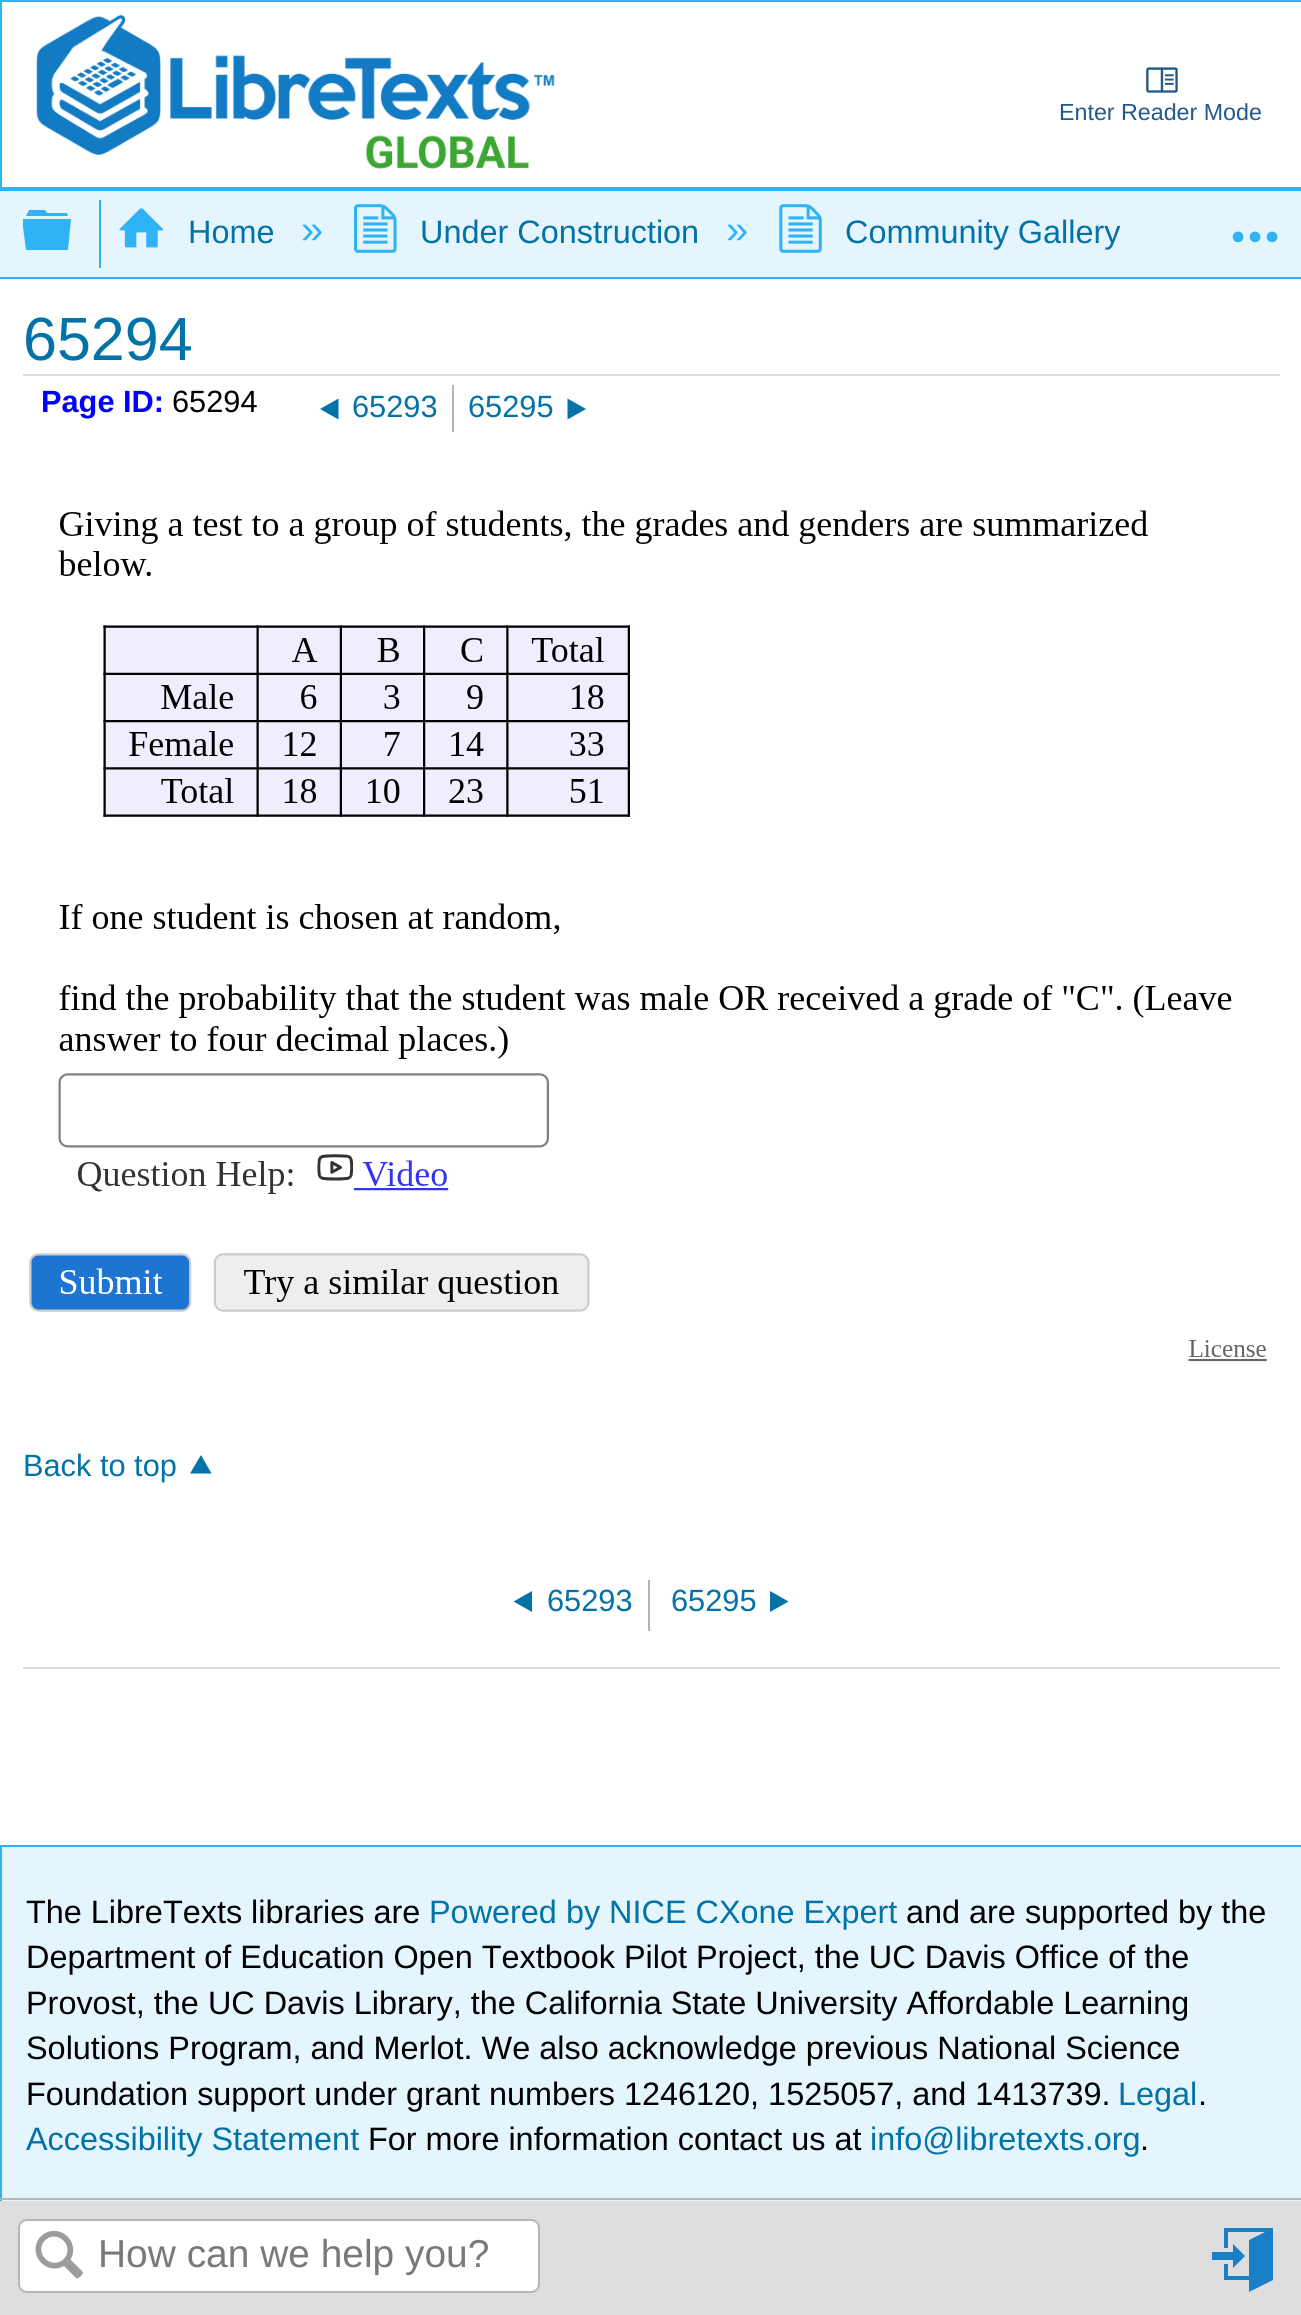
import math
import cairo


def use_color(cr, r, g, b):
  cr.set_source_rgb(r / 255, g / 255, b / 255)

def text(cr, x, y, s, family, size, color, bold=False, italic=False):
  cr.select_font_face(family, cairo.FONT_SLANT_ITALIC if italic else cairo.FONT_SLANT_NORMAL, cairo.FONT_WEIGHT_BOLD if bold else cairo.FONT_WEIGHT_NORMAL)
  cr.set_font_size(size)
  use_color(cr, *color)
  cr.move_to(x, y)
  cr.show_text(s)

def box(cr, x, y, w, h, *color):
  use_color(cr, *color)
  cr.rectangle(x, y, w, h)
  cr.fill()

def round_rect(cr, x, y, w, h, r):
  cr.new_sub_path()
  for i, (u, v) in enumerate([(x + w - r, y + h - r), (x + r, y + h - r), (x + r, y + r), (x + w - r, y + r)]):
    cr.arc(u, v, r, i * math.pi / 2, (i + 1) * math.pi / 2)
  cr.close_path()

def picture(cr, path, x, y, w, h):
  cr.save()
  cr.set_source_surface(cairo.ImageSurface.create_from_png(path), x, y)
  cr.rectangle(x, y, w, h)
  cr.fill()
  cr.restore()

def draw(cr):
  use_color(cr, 255, 255, 255)
  cr.paint()
  cr.rectangle(1, 1, 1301, 187)
  use_color(cr, 48, 179, 246)
  cr.stroke()
  picture(cr, "img_01.png", 36, 15, 519, 154)
  picture(cr, "img_02.png", 1146, 67, 32, 26)
  box(cr, 0, 191, 1301, 86, 229, 245, 254)
  box(cr, 0, 189, 1301, 2, 48, 179, 246)
  box(cr, 0, 277, 1301, 2, 48, 179, 246)
  cr.set_fill_rule(cairo.FILL_RULE_EVEN_ODD)
  cr.new_path()
  cr.move_to(23, 227)
  cr.line_to(23, 219)
  cr.line_to(71, 219)
  cr.line_to(68, 250)
  cr.line_to(26, 250)
  cr.close_path()
  cr.move_to(67, 213)
  cr.line_to(47, 213)
  cr.line_to(45, 210)
  cr.line_to(29, 210)
  cr.line_to(26, 216)
  cr.line_to(68, 216)
  cr.close_path()
  cr.fill()
  box(cr, 99, 200, 2, 68, 48, 179, 246)
  picture(cr, "img_03.png", 119, 208, 45, 40)
  picture(cr, "img_04.png", 354, 204, 43, 49)
  picture(cr, "img_05.png", 779, 204, 43, 49)
  picture(cr, "img_06.png", 1232, 231, 46, 12)
  use_color(cr, 229, 245, 254)
  cr.rectangle(1, 1846, 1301, 358)
  cr.fill_preserve()
  use_color(cr, 48, 179, 246)
  cr.stroke()
  cr.set_source_rgba(0.867, 0.867, 0.867, 0.97)
  cr.rectangle(0, 2201, 1301, 114)
  cr.fill()
  cr.set_source_rgba(0.706, 0.706, 0.706, 0.97)
  cr.rectangle(0, 2198, 1301, 2)
  cr.fill()
  use_color(cr, 255, 255, 255)
  round_rect(cr, 19, 2220, 520, 72, 8)
  cr.fill_preserve()
  use_color(cr, 182, 182, 182)
  cr.stroke()
  picture(cr, "img_07.png", 35, 2230, 48, 49)
  use_color(cr, 25, 127, 198)
  cr.set_fill_rule(cairo.FILL_RULE_WINDING)
  cr.new_path()
  cr.move_to(1233, 2260)
  cr.line_to(1212, 2260)
  cr.line_to(1212, 2252)
  cr.line_to(1233, 2252)
  cr.line_to(1233, 2244)
  cr.line_to(1245, 2256)
  cr.line_to(1233, 2268)
  cr.close_path()
  cr.move_to(1273, 2228)
  cr.line_to(1273, 2280)
  cr.line_to(1249, 2292)
  cr.line_to(1249, 2280)
  cr.line_to(1224, 2280)
  cr.line_to(1224, 2264)
  cr.line_to(1228, 2264)
  cr.line_to(1228, 2276)
  cr.line_to(1249, 2276)
  cr.line_to(1249, 2240)
  cr.line_to(1265, 2232)
  cr.line_to(1228, 2232)
  cr.line_to(1228, 2248)
  cr.line_to(1224, 2248)
  cr.line_to(1224, 2228)
  cr.close_path()
  cr.fill()
  box(cr, 23, 374, 1257, 2, 221, 221, 221)
  box(cr, 452, 385, 2, 47, 180, 180, 180)
  use_color(cr, 3, 114, 166)
  cr.new_path()
  cr.move_to(338.5, 398.5)
  cr.line_to(338.5, 419.5)
  cr.line_to(320, 409)
  cr.close_path()
  cr.fill()
  cr.new_path()
  cr.move_to(567.5, 398.5)
  cr.line_to(567.5, 419.5)
  cr.line_to(586, 409)
  cr.close_path()
  cr.fill()
  picture(cr, "img_08.png", 29, 510, 1238, 852)
  box(cr, 23, 1667, 1257, 2, 221, 221, 221)
  use_color(cr, 3, 114, 166)
  cr.new_path()
  cr.move_to(190, 1473.5)
  cr.line_to(211.5, 1473.5)
  cr.line_to(201, 1455)
  cr.close_path()
  cr.fill()
  box(cr, 648, 1580, 2, 51, 180, 180, 180)
  use_color(cr, 3, 114, 166)
  cr.new_path()
  cr.move_to(532, 1591)
  cr.line_to(532, 1612)
  cr.line_to(513.5, 1601.5)
  cr.close_path()
  cr.fill()
  cr.new_path()
  cr.move_to(770, 1591)
  cr.line_to(770, 1612)
  cr.line_to(788.5, 1601.5)
  cr.close_path()
  cr.fill()
  text(cr, 1059, 120, "Enter Reader Mode", "Liberation Sans", 23.25, (35, 90, 139))
  text(cr, 188, 243, "Home", "Liberation Sans", 32.4, (3, 114, 166))
  text(cr, 301, 243, "»", "Liberation Sans", 40, (48, 179, 246))
  text(cr, 420, 243, "Under Construction", "Liberation Sans", 32.4, (3, 114, 166))
  text(cr, 726, 243, "»", "Liberation Sans", 40, (48, 179, 246))
  text(cr, 845, 243, "Community Gallery", "Liberation Sans", 32.4, (3, 114, 166))
  text(cr, 98, 2267, "How can we help you?", "Liberation Sans", 38.9, (121, 121, 121))
  text(cr, 23, 360, "65294", "Liberation Sans", 61, (3, 114, 166))
  text(cr, 41, 412, "Page ID:", "Liberation Sans", 30.75, (0, 0, 255), bold=True)
  text(cr, 172, 412, "65294", "Liberation Sans", 30.75, (0, 0, 0))
  text(cr, 352, 417, "65293", "Liberation Sans", 30.75, (3, 114, 166))
  text(cr, 468, 417, "65295", "Liberation Sans", 30.75, (3, 114, 166))
  text(cr, 23, 1476, "Back to top", "Liberation Sans", 30.75, (3, 114, 166))
  text(cr, 547, 1611, "65293", "Liberation Sans", 30.75, (3, 114, 166))
  text(cr, 671, 1611, "65295", "Liberation Sans", 30.75, (3, 114, 166))
  text(cr, 26, 1923, "The LibreTexts libraries are", "Liberation Sans", 32.4, (0, 0, 0))
  text(cr, 429, 1923, "Powered by NICE CXone Expert", "Liberation Sans", 32.4, (3, 114, 166))
  text(cr, 906, 1923, "and are supported by the", "Liberation Sans", 32.4, (0, 0, 0))
  text(cr, 26, 1968, "Department of Education Open Textbook Pilot Project, the UC Davis Office of the", "Liberation Sans", 32.4, (0, 0, 0))
  text(cr, 26, 2014, "Provost, the UC Davis Library, the California State University Affordable Learning", "Liberation Sans", 32.4, (0, 0, 0))
  text(cr, 26, 2059, "Solutions Program, and Merlot. We also acknowledge previous National Science", "Liberation Sans", 32.4, (0, 0, 0))
  text(cr, 26, 2105, "Foundation support under grant numbers 1246120, 1525057, and 1413739.", "Liberation Sans", 32.4, (0, 0, 0))
  text(cr, 1118, 2105, "Legal", "Liberation Sans", 32.4, (3, 114, 166))
  text(cr, 1198, 2105, ".", "Liberation Sans", 32.4, (0, 0, 0))
  text(cr, 26, 2150, "Accessibility Statement", "Liberation Sans", 32.4, (3, 114, 166))
  text(cr, 368, 2150, "For more information contact us at", "Liberation Sans", 32.4, (0, 0, 0))
  text(cr, 870, 2150, "info@libretexts.org", "Liberation Sans", 32.4, (3, 114, 166))
  text(cr, 1140, 2150, ".", "Liberation Sans", 32.4, (0, 0, 0))


surface = cairo.ImageSurface(cairo.FORMAT_RGB24, 1301, 2315)
cr = cairo.Context(surface)
options = cairo.FontOptions()
options.set_hint_metrics(cairo.HINT_METRICS_OFF)
options.set_hint_style(cairo.HINT_STYLE_NONE)
cr.set_font_options(options)
cr.set_miter_limit(4)
draw(cr)
surface.write_to_png("out.png")
